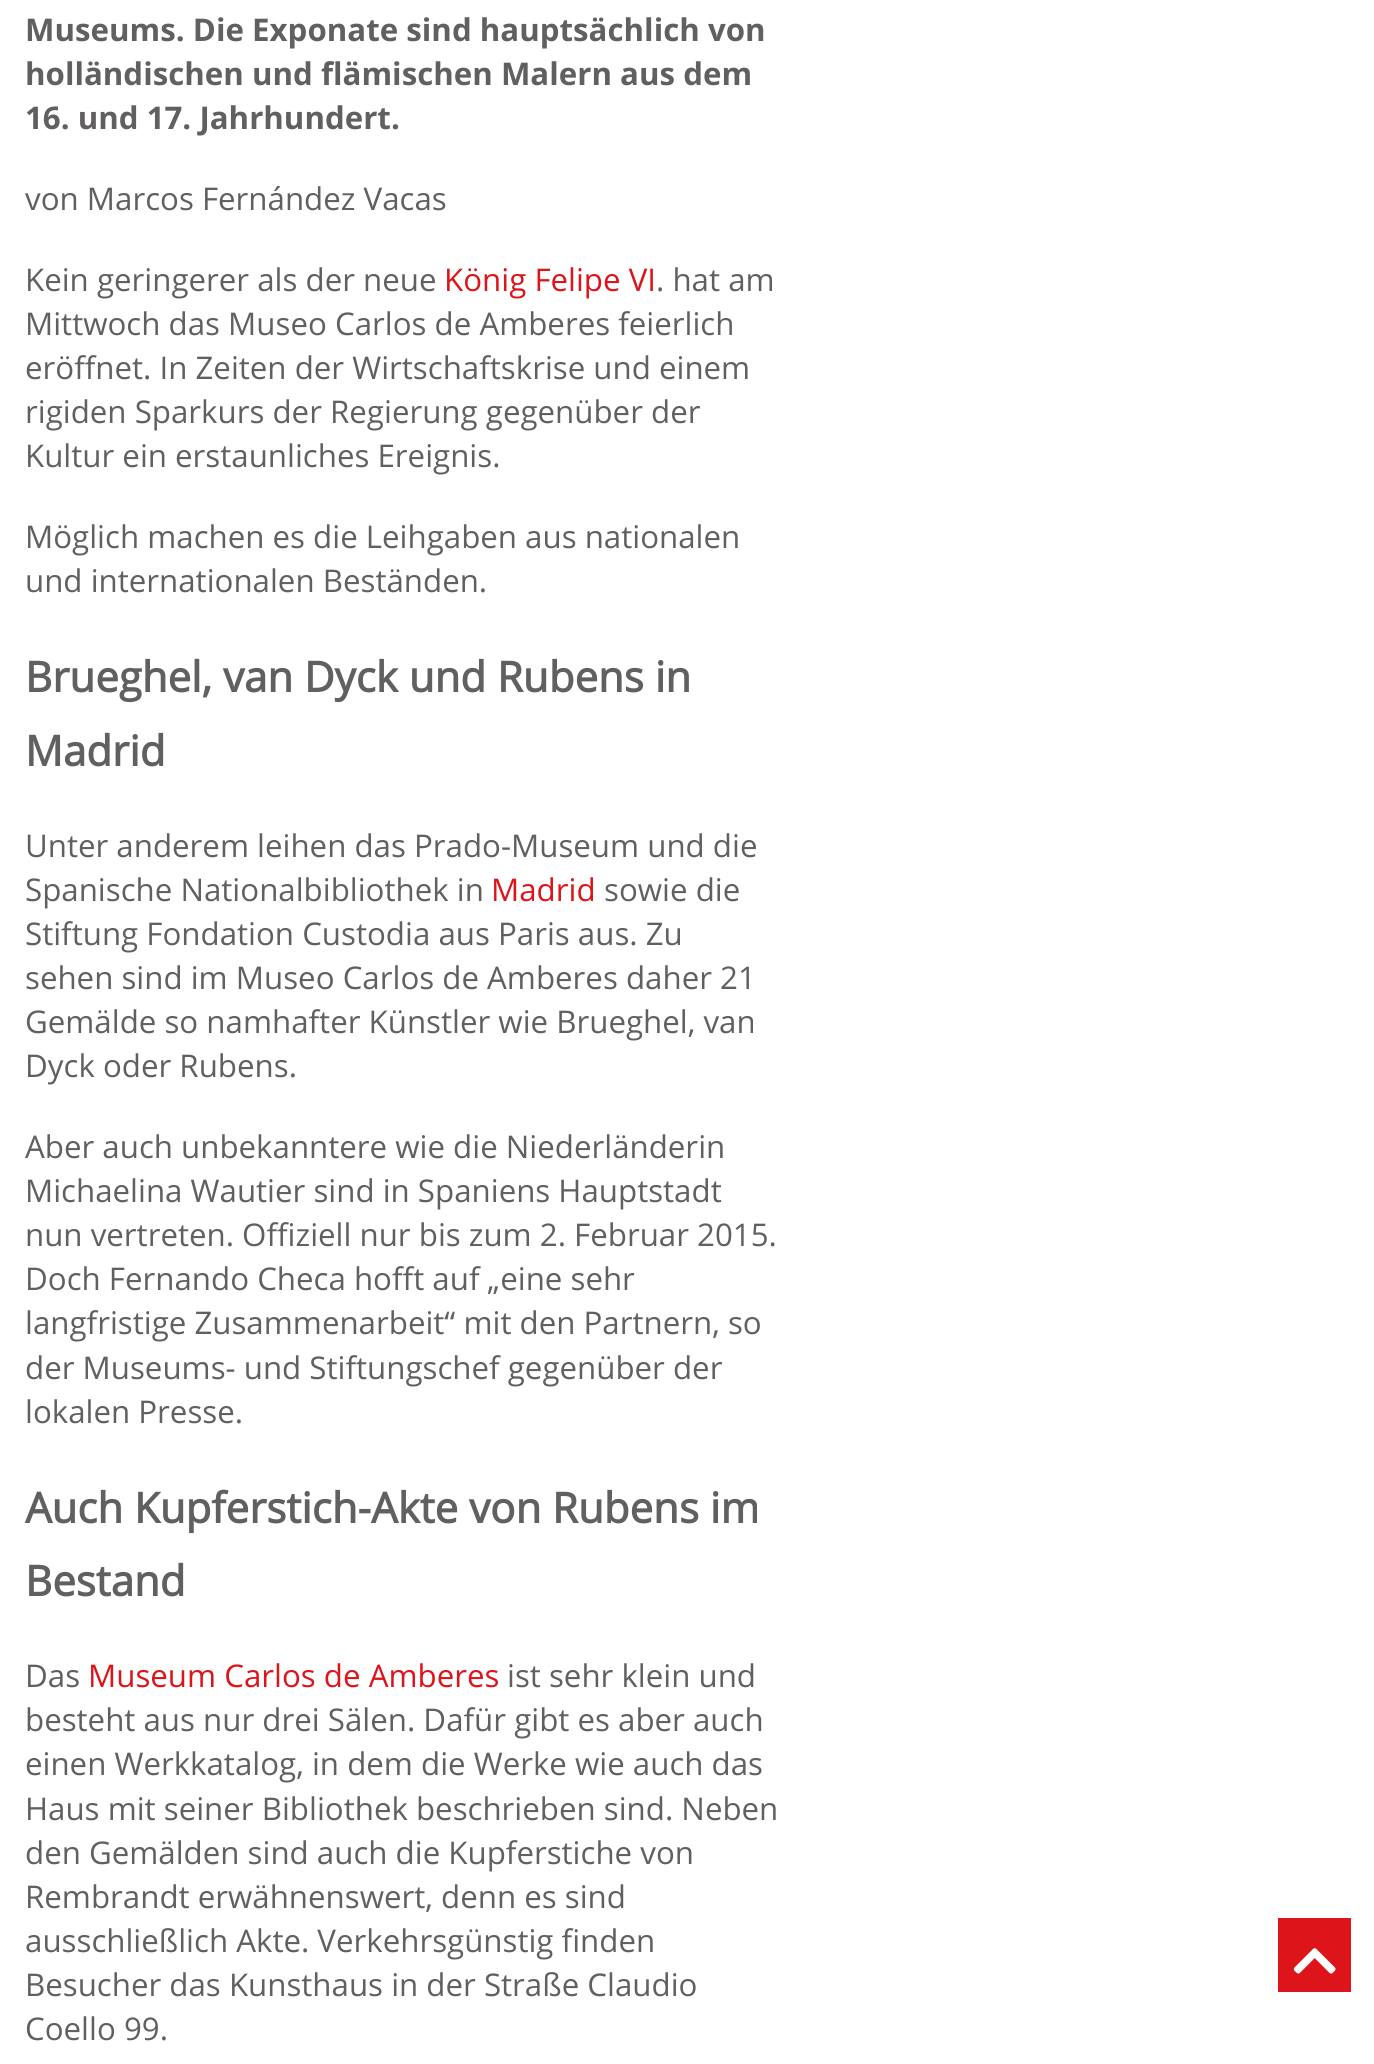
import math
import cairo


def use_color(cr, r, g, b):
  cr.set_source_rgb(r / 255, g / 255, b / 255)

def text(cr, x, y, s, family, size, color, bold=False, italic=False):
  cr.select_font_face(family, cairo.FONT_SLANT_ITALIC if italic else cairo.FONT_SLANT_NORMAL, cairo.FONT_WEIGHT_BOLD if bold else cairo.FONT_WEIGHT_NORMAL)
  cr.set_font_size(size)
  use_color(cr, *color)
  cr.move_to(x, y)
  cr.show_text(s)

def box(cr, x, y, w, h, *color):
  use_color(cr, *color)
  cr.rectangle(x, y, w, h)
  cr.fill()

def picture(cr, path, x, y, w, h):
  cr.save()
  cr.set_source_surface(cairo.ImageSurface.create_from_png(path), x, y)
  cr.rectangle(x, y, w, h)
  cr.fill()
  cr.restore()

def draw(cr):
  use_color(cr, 255, 255, 255)
  cr.paint()
  box(cr, 1278, 1918, 73, 74, 221, 20, 25)
  picture(cr, "img_01.png", 1293, 1948, 43, 26)
  text(cr, 25, 41, "Museums. Die Exponate sind hauptsächlich von", "Open Sans", 31.25, (97, 95, 95), bold=True)
  text(cr, 25, 85, "holländischen und flämischen Malern aus dem", "Open Sans", 31.25, (97, 95, 95), bold=True)
  text(cr, 25, 129, "16. und 17. Jahrhundert.", "Open Sans", 31.25, (97, 95, 95), bold=True)
  text(cr, 25, 210, "von Marcos Fernández Vacas", "Open Sans", 31.25, (97, 95, 95))
  text(cr, 25, 291, "Kein geringerer als der neue", "Open Sans", 31.25, (97, 95, 95))
  text(cr, 444, 291, "König Felipe VI", "Open Sans", 31.25, (221, 20, 25))
  text(cr, 656, 291, ". hat am", "Open Sans", 31.25, (97, 95, 95))
  text(cr, 25, 335, "Mittwoch das Museo Carlos de Amberes feierlich", "Open Sans", 31.25, (97, 95, 95))
  text(cr, 25, 379, "eröffnet. In Zeiten der Wirtschaftskrise und einem", "Open Sans", 31.25, (97, 95, 95))
  text(cr, 25, 423, "rigiden Sparkurs der Regierung gegenüber der", "Open Sans", 31.25, (97, 95, 95))
  text(cr, 25, 467, "Kultur ein erstaunliches Ereignis.", "Open Sans", 31.25, (97, 95, 95))
  text(cr, 25, 548, "Möglich machen es die Leihgaben aus nationalen", "Open Sans", 31.25, (97, 95, 95))
  text(cr, 25, 592, "und internationalen Beständen.", "Open Sans", 31.25, (97, 95, 95))
  text(cr, 25, 692, "Brueghel, van Dyck und Rubens in", "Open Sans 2", 42, (97, 95, 95), bold=True)
  text(cr, 25, 766, "Madrid", "Open Sans 2", 42, (97, 95, 95), bold=True)
  text(cr, 25, 857, "Unter anderem leihen das Prado-Museum und die", "Open Sans", 31.25, (97, 95, 95))
  text(cr, 25, 901, "Spanische Nationalbibliothek in", "Open Sans", 31.25, (97, 95, 95))
  text(cr, 491, 901, "Madrid", "Open Sans", 31.25, (221, 20, 25))
  text(cr, 604, 901, "sowie die", "Open Sans", 31.25, (97, 95, 95))
  text(cr, 25, 945, "Stiftung Fondation Custodia aus Paris aus. Zu", "Open Sans", 31.25, (97, 95, 95))
  text(cr, 25, 989, "sehen sind im Museo Carlos de Amberes daher 21", "Open Sans", 31.25, (97, 95, 95))
  text(cr, 25, 1033, "Gemälde so namhafter Künstler wie Brueghel, van", "Open Sans", 31.25, (97, 95, 95))
  text(cr, 25, 1077, "Dyck oder Rubens.", "Open Sans", 31.25, (97, 95, 95))
  text(cr, 25, 1158, "Aber auch unbekanntere wie die Niederländerin", "Open Sans", 31.25, (97, 95, 95))
  text(cr, 25, 1202, "Michaelina Wautier sind in Spaniens Hauptstadt", "Open Sans", 31.25, (97, 95, 95))
  text(cr, 25, 1246, "nun vertreten. Offiziell nur bis zum 2. Februar 2015.", "Open Sans", 31.25, (97, 95, 95))
  text(cr, 25, 1290, "Doch Fernando Checa hofft auf „eine sehr", "Open Sans", 31.25, (97, 95, 95))
  text(cr, 25, 1334, "langfristige Zusammenarbeit“ mit den Partnern, so", "Open Sans", 31.25, (97, 95, 95))
  text(cr, 25, 1379, "der Museums- und Stiftungschef gegenüber der", "Open Sans", 31.25, (97, 95, 95))
  text(cr, 25, 1423, "lokalen Presse.", "Open Sans", 31.25, (97, 95, 95))
  text(cr, 25, 1523, "Auch Kupferstich-Akte von Rubens im", "Open Sans 2", 42, (97, 95, 95), bold=True)
  text(cr, 25, 1596, "Bestand", "Open Sans 2", 42, (97, 95, 95), bold=True)
  text(cr, 25, 1687, "Das", "Open Sans", 31.25, (97, 95, 95))
  text(cr, 88, 1687, "Museum Carlos de Amberes", "Open Sans", 31.25, (221, 20, 25))
  text(cr, 507, 1687, "ist sehr klein und", "Open Sans", 31.25, (97, 95, 95))
  text(cr, 25, 1731, "besteht aus nur drei Sälen. Dafür gibt es aber auch", "Open Sans", 31.25, (97, 95, 95))
  text(cr, 25, 1775, "einen Werkkatalog, in dem die Werke wie auch das", "Open Sans", 31.25, (97, 95, 95))
  text(cr, 25, 1820, "Haus mit seiner Bibliothek beschrieben sind. Neben", "Open Sans", 31.25, (97, 95, 95))
  text(cr, 25, 1864, "den Gemälden sind auch die Kupferstiche von", "Open Sans", 31.25, (97, 95, 95))
  text(cr, 25, 1908, "Rembrandt erwähnenswert, denn es sind", "Open Sans", 31.25, (97, 95, 95))
  text(cr, 25, 1952, "ausschließlich Akte. Verkehrsgünstig finden", "Open Sans", 31.25, (97, 95, 95))
  text(cr, 25, 1996, "Besucher das Kunsthaus in der Straße Claudio", "Open Sans", 31.25, (97, 95, 95))
  text(cr, 25, 2040, "Coello 99.", "Open Sans", 31.25, (97, 95, 95))


surface = cairo.ImageSurface(cairo.FORMAT_RGB24, 1374, 2064)
cr = cairo.Context(surface)
options = cairo.FontOptions()
options.set_hint_metrics(cairo.HINT_METRICS_OFF)
options.set_hint_style(cairo.HINT_STYLE_NONE)
cr.set_font_options(options)
cr.set_miter_limit(4)
draw(cr)
surface.write_to_png("out.png")
